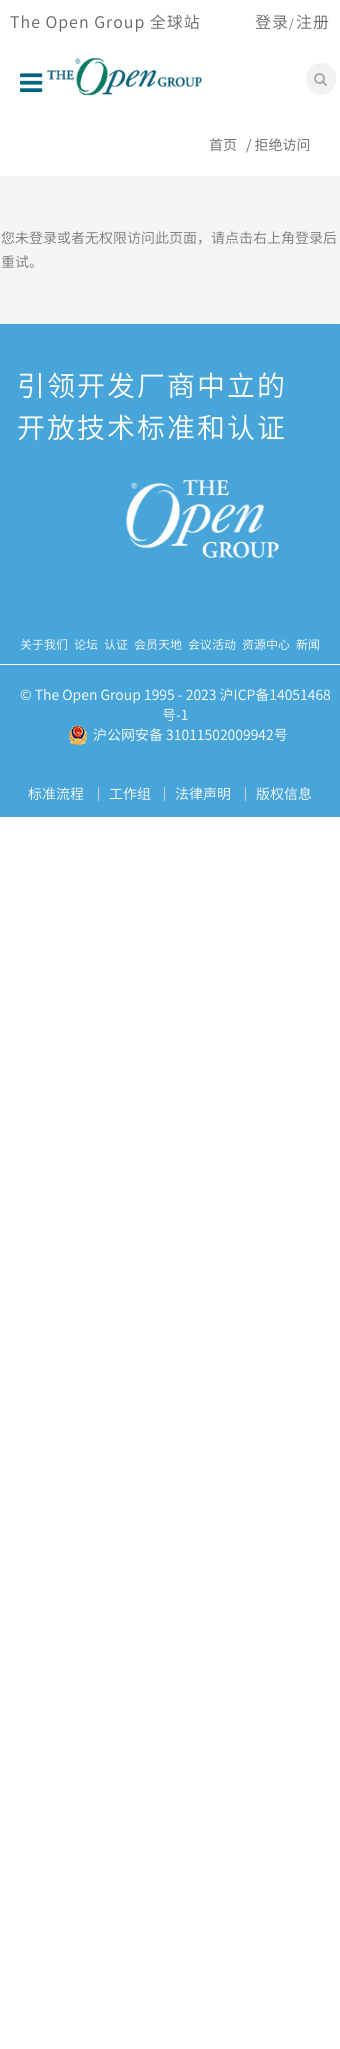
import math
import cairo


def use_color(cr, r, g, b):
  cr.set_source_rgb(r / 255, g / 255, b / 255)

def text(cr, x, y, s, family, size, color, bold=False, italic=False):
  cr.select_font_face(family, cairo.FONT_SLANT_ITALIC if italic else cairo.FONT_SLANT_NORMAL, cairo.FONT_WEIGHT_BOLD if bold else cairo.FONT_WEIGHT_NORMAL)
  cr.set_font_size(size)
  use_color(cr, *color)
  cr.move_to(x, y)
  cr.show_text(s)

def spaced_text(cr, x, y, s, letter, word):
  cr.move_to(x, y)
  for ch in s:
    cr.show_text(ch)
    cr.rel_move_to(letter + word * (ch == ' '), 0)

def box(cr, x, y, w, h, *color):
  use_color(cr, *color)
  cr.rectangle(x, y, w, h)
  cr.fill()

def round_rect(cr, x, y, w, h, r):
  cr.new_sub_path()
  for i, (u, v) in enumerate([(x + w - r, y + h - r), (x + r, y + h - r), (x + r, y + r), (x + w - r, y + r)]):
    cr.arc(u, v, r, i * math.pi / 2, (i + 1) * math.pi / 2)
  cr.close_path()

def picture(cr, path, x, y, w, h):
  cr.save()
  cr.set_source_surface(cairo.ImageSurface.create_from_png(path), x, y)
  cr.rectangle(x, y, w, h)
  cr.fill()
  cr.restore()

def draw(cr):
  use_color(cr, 255, 255, 255)
  cr.paint()
  picture(cr, "img_01.png", 20, 73, 23, 19)
  picture(cr, "img_02.png", 47, 58, 155, 38)
  use_color(cr, 242, 242, 242)
  round_rect(cr, 306, 63, 30, 32, 15)
  cr.fill()
  picture(cr, "img_03.png", 314, 73, 13, 13)
  box(cr, 0, 176, 340, 148, 245, 245, 245)
  box(cr, 0, 324, 340, 493, 72, 165, 217)
  picture(cr, "img_04.png", 126, 479, 153, 79)
  box(cr, 0, 664, 340, 1, 255, 255, 255)
  picture(cr, "img_05.png", 69, 725, 18, 20)
  box(cr, 98, 787, 1, 14, 204, 204, 204)
  box(cr, 164, 787, 1, 14, 204, 204, 204)
  box(cr, 245, 787, 1, 14, 204, 204, 204)
  cr.select_font_face("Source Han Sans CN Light")
  cr.set_font_size(16)
  use_color(cr, 102, 102, 102)
  spaced_text(cr, 10, 28, "The Open Group 全球站", 1, 0)
  spaced_text(cr, 255, 28, "登录", 1, 0)
  text(cr, 289, 28, "/", "Source Han Sans CN Light", 12, (102, 102, 102))
  cr.set_font_size(16)
  spaced_text(cr, 296, 28, "注册", 1, 0)
  text(cr, 209, 150, "首页", "Source Han Sans CN Light", 14, (102, 102, 102))
  text(cr, 246, 150, "/ 拒绝访问", "Source Han Sans CN Light", 14, (102, 102, 102))
  text(cr, 1, 243, "您未登录或者无权限访问此页面，请点击右上角登录后", "Source Han Sans CN Light", 14, (119, 119, 119))
  text(cr, 1, 267, "重试。", "Source Han Sans CN Light", 14, (119, 119, 119))
  cr.set_font_size(28)
  use_color(cr, 255, 255, 255)
  spaced_text(cr, 17, 396, "引领开发厂商中立的", 2, 0)
  spaced_text(cr, 17, 438, "开放技术标准和认证", 2, 0)
  text(cr, 20, 649, "关于我们", "Source Han Sans CN Light", 12, (255, 255, 255))
  text(cr, 74, 649, "论坛", "Source Han Sans CN Light", 12, (255, 255, 255))
  text(cr, 104, 649, "认证", "Source Han Sans CN Light", 12, (255, 255, 255))
  text(cr, 134, 649, "会员天地", "Source Han Sans CN Light", 12, (255, 255, 255))
  text(cr, 188, 649, "会议活动", "Source Han Sans CN Light", 12, (255, 255, 255))
  text(cr, 242, 649, "资源中心", "Source Han Sans CN Light", 12, (255, 255, 255))
  text(cr, 296, 649, "新闻", "Source Han Sans CN Light", 12, (255, 255, 255))
  text(cr, 20, 700, "© The Open Group 1995 - 2023 沪ICP备14051468", "Source Han Sans CN Light", 14, (255, 255, 255))
  text(cr, 162, 720, "号-1", "Source Han Sans CN Light", 14, (255, 255, 255))
  text(cr, 93, 740, "沪公网安备 31011502009942号", "Source Han Sans CN Light", 14, (255, 255, 255))
  text(cr, 28, 799, "标准流程", "Source Han Sans CN Light", 14, (255, 255, 255))
  text(cr, 109, 799, "工作组", "Source Han Sans CN Light", 14, (255, 255, 255))
  text(cr, 175, 799, "法律声明", "Source Han Sans CN Light", 14, (255, 255, 255))
  text(cr, 256, 799, "版权信息", "Source Han Sans CN Light", 14, (255, 255, 255))


surface = cairo.ImageSurface(cairo.FORMAT_RGB24, 340, 2049)
cr = cairo.Context(surface)
options = cairo.FontOptions()
options.set_hint_metrics(cairo.HINT_METRICS_OFF)
options.set_hint_style(cairo.HINT_STYLE_NONE)
cr.set_font_options(options)
cr.set_miter_limit(4)
draw(cr)
surface.write_to_png("out.png")
